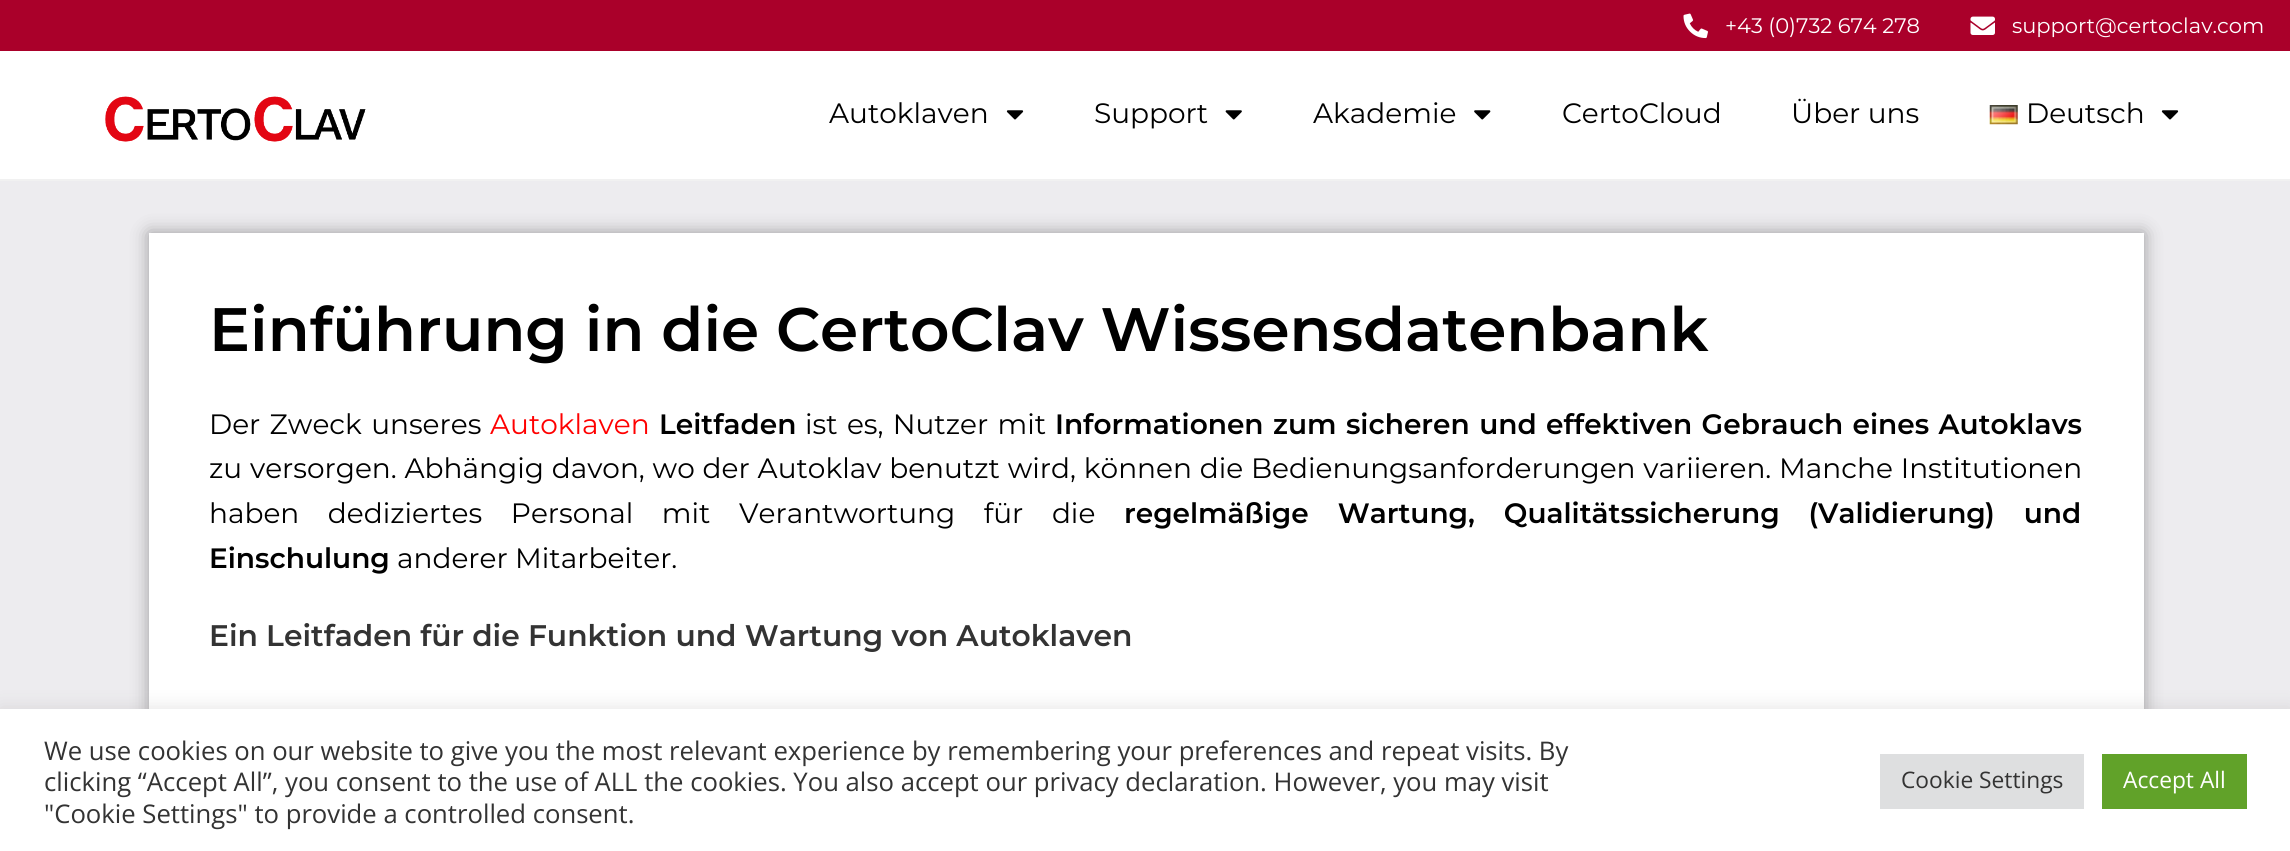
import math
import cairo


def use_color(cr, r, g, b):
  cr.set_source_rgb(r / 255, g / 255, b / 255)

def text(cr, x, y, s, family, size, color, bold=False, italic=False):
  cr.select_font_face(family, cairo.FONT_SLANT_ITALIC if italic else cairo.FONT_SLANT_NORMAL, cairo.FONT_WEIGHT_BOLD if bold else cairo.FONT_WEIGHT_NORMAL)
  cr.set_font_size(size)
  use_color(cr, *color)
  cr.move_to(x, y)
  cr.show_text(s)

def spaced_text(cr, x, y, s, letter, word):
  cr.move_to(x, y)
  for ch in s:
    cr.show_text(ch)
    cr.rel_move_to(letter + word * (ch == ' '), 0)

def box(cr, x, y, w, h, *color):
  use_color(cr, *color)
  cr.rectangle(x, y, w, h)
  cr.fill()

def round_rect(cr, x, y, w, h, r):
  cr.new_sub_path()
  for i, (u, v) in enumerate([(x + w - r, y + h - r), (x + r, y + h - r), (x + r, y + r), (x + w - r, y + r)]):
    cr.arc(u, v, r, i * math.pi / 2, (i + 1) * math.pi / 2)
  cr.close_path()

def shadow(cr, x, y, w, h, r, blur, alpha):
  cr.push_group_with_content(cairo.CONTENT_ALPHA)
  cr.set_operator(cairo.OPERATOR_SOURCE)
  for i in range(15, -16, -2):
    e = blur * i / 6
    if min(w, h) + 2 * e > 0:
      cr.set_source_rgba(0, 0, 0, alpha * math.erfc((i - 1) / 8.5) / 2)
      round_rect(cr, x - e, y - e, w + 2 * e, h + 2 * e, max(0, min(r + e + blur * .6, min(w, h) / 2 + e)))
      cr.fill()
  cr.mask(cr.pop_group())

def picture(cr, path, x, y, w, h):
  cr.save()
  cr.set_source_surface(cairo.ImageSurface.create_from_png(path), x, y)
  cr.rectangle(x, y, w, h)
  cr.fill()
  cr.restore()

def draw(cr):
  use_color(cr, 237, 236, 239)
  cr.paint()
  box(cr, 0, 179, 2290, 2, 241, 241, 241)
  box(cr, 0, 0, 2290, 51, 170, 0, 42)
  picture(cr, "img_01.png", 1683, 13, 25, 26)
  picture(cr, "img_02.png", 1970, 16, 25, 19)
  box(cr, 0, 51, 2290, 128, 255, 255, 255)
  picture(cr, "img_03.png", 105, 96, 261, 46)
  picture(cr, "img_04.png", 1006, 110, 18, 10)
  picture(cr, "img_05.png", 1225, 110, 17, 10)
  picture(cr, "img_06.png", 1474, 110, 17, 10)
  picture(cr, "img_07.png", 1989, 105, 29, 20)
  picture(cr, "img_04.png", 2161, 110, 18, 10)
  use_color(cr, 0, 0, 0)
  shadow(cr, 149, 233, 1995, 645, 0, 9, 0.35)
  box(cr, 149, 233, 1995, 476, 255, 255, 255)
  use_color(cr, 172, 171, 171)
  shadow(cr, 0, 707, 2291, 144, 0, 9, 0.3)
  box(cr, 0, 709, 2290, 142, 255, 255, 255)
  box(cr, 1880, 754, 204, 55, 222, 223, 224)
  box(cr, 2102, 754, 145, 55, 97, 162, 41)
  text(cr, 1725, 33, "+43 (0)732 674 278", "Montserrat", 21, (255, 255, 255))
  text(cr, 2012, 33, "support@certoclav.com", "Montserrat", 21, (255, 255, 255))
  text(cr, 829, 123, "Autoklaven", "Montserrat", 28, (0, 0, 0))
  text(cr, 1094, 123, "Support", "Montserrat", 28, (0, 0, 0))
  text(cr, 1313, 123, "Akademie", "Montserrat", 28, (0, 0, 0))
  text(cr, 1562, 123, "CertoCloud", "Montserrat", 28, (0, 0, 0))
  text(cr, 1791, 123, "Über uns", "Montserrat", 28, (0, 0, 0))
  text(cr, 2026, 123, "Deutsch", "Montserrat", 28, (0, 0, 0))
  text(cr, 209, 351, "Einführung in die CertoClav Wissensdatenbank", "Montserrat SemiBold", 61.25, (0, 0, 0))
  cr.select_font_face("Montserrat")
  cr.set_font_size(28)
  spaced_text(cr, 209, 434, "Der Zweck unseres", 0, 2)
  text(cr, 490, 434, "Autoklaven", "Montserrat", 28, (255, 0, 0))
  text(cr, 659, 434, "Leitfaden", "Montserrat SemiBold", 28, (0, 0, 0))
  cr.select_font_face("Montserrat")
  spaced_text(cr, 805, 434, "ist es, Nutzer mit", 0, 2)
  cr.select_font_face("Montserrat SemiBold")
  spaced_text(cr, 1055, 434, "Informationen zum sicheren und effektiven Gebrauch eines Autoklavs", 0, 1.75)
  cr.select_font_face("Montserrat")
  spaced_text(cr, 209, 478, "zu versorgen. Abhängig davon, wo der Autoklav benutzt wird, können die Bedienungsanforderungen variieren. Manche Institutionen", 0, 0.5)
  spaced_text(cr, 209, 523, "haben dediziertes Personal mit Verantwortung für die", 0, 21.25)
  cr.select_font_face("Montserrat SemiBold")
  spaced_text(cr, 1124, 523, "regelmäßige Wartung, Qualitätssicherung (", 0, 21.25)
  text(cr, 1818, 523, "Validierung", "Montserrat SemiBold", 28, (0, 0, 0))
  spaced_text(cr, 1985, 523, ") und", 0, 21.25)
  text(cr, 209, 568, "Einschulung", "Montserrat SemiBold", 28, (0, 0, 0))
  text(cr, 397, 568, "anderer Mitarbeiter.", "Montserrat", 28, (0, 0, 0))
  text(cr, 209, 646, "Ein Leitfaden für die Funktion und Wartung von Autoklaven", "Montserrat SemiBold", 29.75, (51, 51, 51))
  text(cr, 44, 760, "We use cookies on our website to give you the most relevant experience by remembering your preferences and repeat visits. By", "Open Sans", 25.67, (51, 51, 51))
  text(cr, 44, 791, "clicking “Accept All”, you consent to the use of ALL the cookies. You also accept our privacy declaration. However, you may visit", "Open Sans", 25.67, (51, 51, 51))
  text(cr, 44, 823, "\"Cookie Settings\" to provide a controlled consent.", "Open Sans", 25.67, (51, 51, 51))
  text(cr, 1901, 788, "Cookie Settings", "Open Sans", 22.75, (51, 51, 51))
  text(cr, 2123, 788, "Accept All", "Open Sans", 22.75, (255, 255, 255))


surface = cairo.ImageSurface(cairo.FORMAT_RGB24, 2290, 851)
cr = cairo.Context(surface)
options = cairo.FontOptions()
options.set_hint_metrics(cairo.HINT_METRICS_OFF)
options.set_hint_style(cairo.HINT_STYLE_NONE)
cr.set_font_options(options)
cr.set_miter_limit(4)
draw(cr)
surface.write_to_png("out.png")
